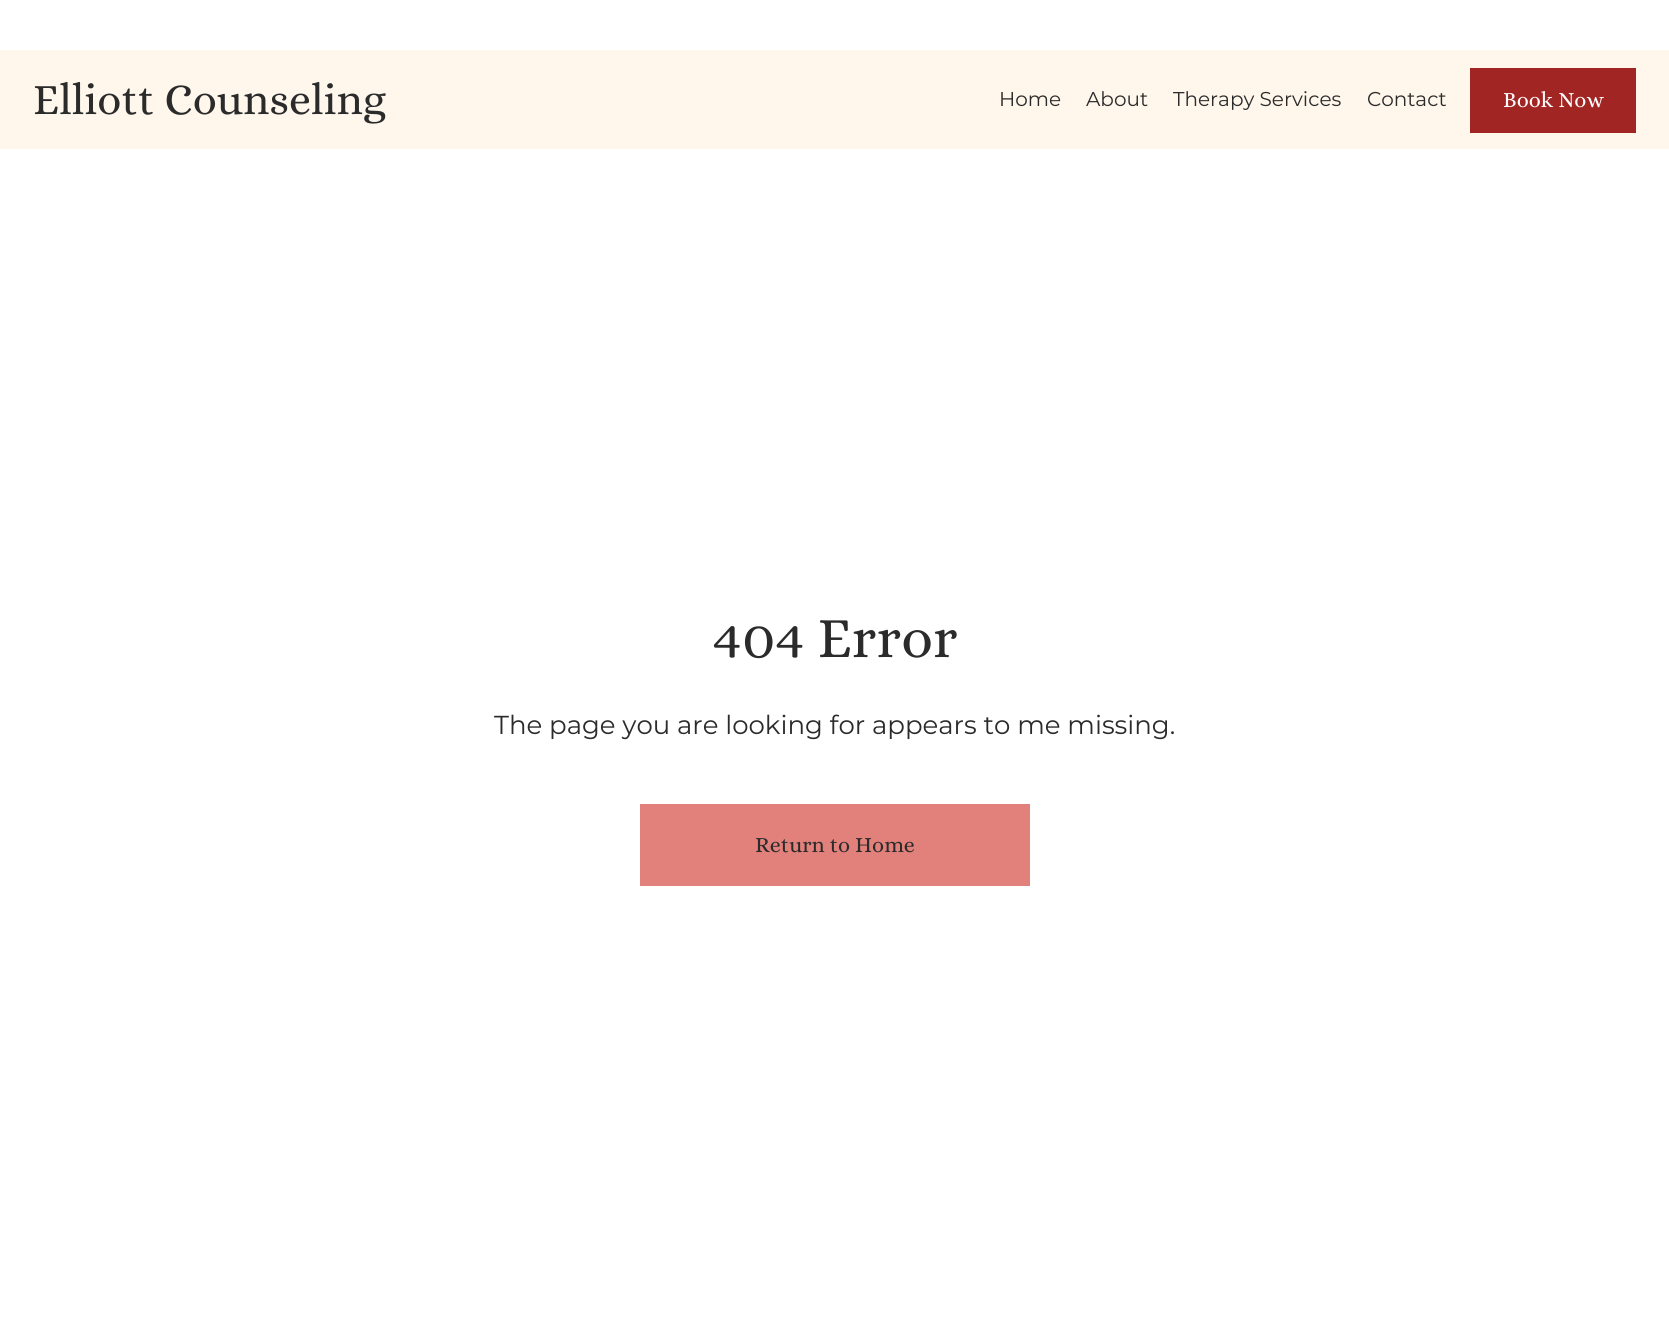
import math
import cairo


def use_color(cr, r, g, b):
  cr.set_source_rgb(r / 255, g / 255, b / 255)

def text(cr, x, y, s, family, size, color, bold=False, italic=False):
  cr.select_font_face(family, cairo.FONT_SLANT_ITALIC if italic else cairo.FONT_SLANT_NORMAL, cairo.FONT_WEIGHT_BOLD if bold else cairo.FONT_WEIGHT_NORMAL)
  cr.set_font_size(size)
  use_color(cr, *color)
  cr.move_to(x, y)
  cr.show_text(s)

def box(cr, x, y, w, h, *color):
  use_color(cr, *color)
  cr.rectangle(x, y, w, h)
  cr.fill()

def draw(cr):
  use_color(cr, 255, 255, 255)
  cr.paint()
  box(cr, 0, 50, 1669, 99, 255, 247, 236)
  box(cr, 1470, 68, 166, 65, 161, 37, 35)
  box(cr, 640, 804, 390, 82, 226, 128, 123)
  text(cr, 33, 114, "Elliott Counseling", "Alice", 44, (43, 43, 43))
  text(cr, 999, 106, "Home", "Montserrat", 20, (43, 43, 43))
  text(cr, 1086, 106, "About", "Montserrat", 20, (43, 43, 43))
  text(cr, 1173, 106, "Therapy Services", "Montserrat", 20, (43, 43, 43))
  text(cr, 1367, 106, "Contact", "Montserrat", 20, (43, 43, 43))
  text(cr, 1503, 107, "Book Now", "Alice", 22, (255, 255, 255))
  text(cr, 713, 657, "404 Error", "Alice", 58, (43, 43, 43))
  text(cr, 494, 734, "The page you are looking for appears to me missing.", "Montserrat", 26, (43, 43, 43))
  text(cr, 755, 852, "Return to Home", "Alice", 22, (43, 43, 43))


surface = cairo.ImageSurface(cairo.FORMAT_RGB24, 1669, 1343)
cr = cairo.Context(surface)
options = cairo.FontOptions()
options.set_hint_metrics(cairo.HINT_METRICS_OFF)
options.set_hint_style(cairo.HINT_STYLE_NONE)
cr.set_font_options(options)
cr.set_miter_limit(4)
draw(cr)
surface.write_to_png("out.png")
